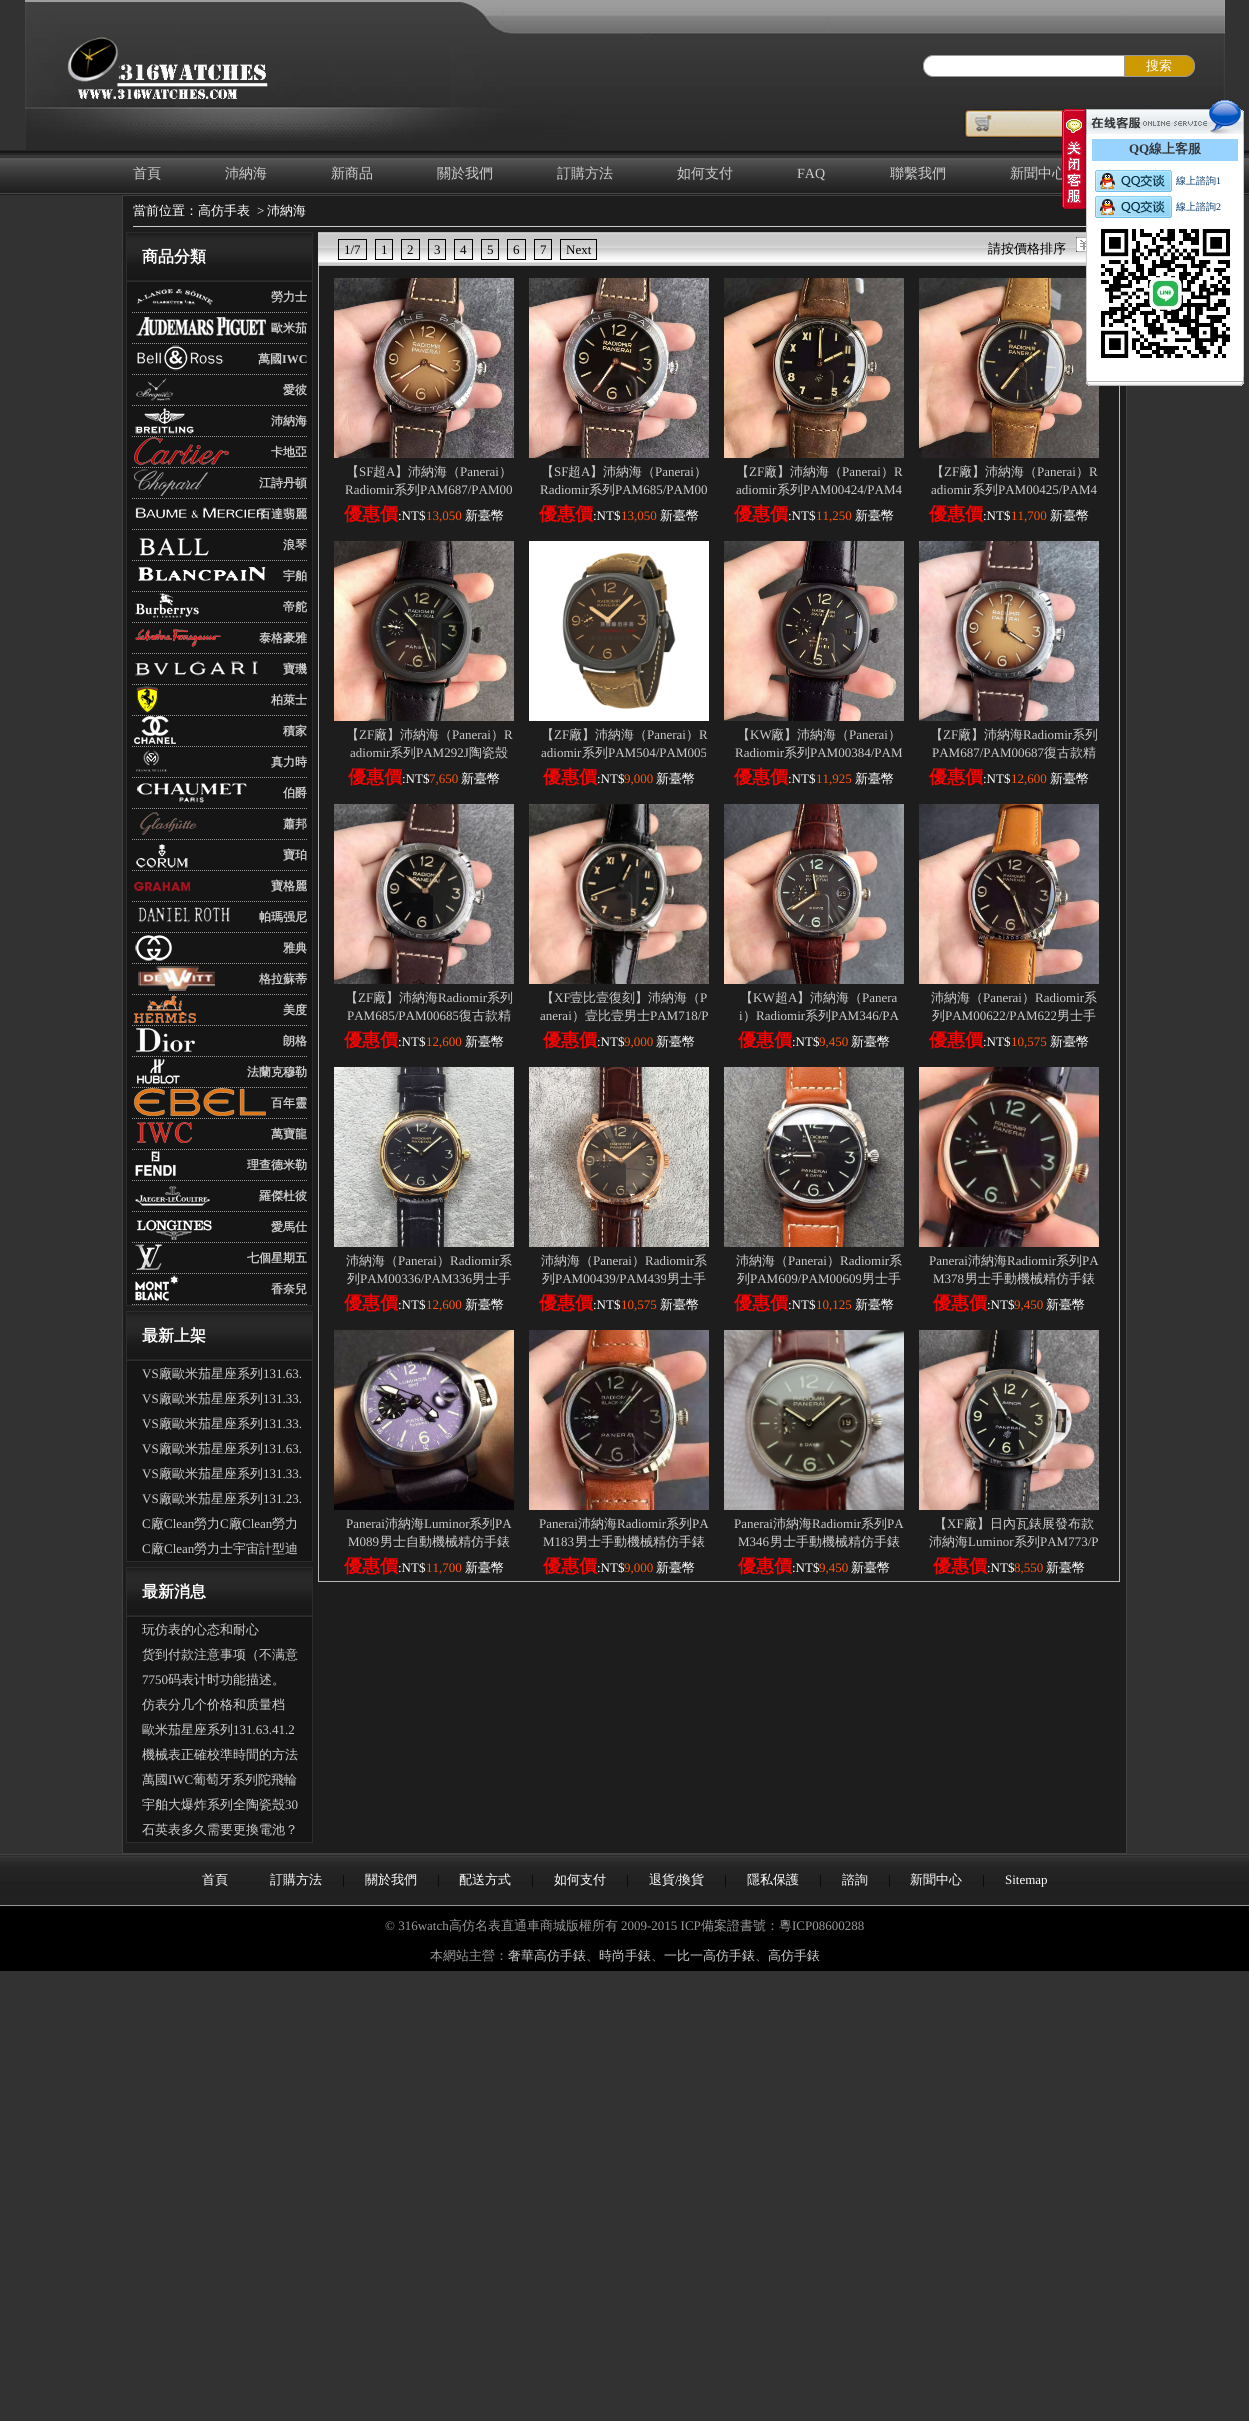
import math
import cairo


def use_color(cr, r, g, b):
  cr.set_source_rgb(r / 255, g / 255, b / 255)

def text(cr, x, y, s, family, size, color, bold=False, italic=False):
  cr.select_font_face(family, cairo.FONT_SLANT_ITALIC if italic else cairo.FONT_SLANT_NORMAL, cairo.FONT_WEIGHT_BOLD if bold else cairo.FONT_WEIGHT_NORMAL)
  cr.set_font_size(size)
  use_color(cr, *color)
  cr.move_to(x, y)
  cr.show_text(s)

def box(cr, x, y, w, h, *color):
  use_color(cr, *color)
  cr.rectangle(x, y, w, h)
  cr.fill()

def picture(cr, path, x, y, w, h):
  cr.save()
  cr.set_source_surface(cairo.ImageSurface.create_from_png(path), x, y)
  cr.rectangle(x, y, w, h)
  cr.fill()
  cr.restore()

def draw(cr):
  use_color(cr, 50, 50, 50)
  cr.paint()
  picture(cr, "img_01.png", 25, 0, 1200, 150)
  picture(cr, "img_02.png", 67, 37, 201, 62)
  use_color(cr, 255, 255, 255)
  cr.new_path()
  cr.move_to(933, 55.5)
  cr.line_to(1124.5, 55.5)
  cr.line_to(1124.5, 76.5)
  cr.line_to(933, 76.5)
  cr.curve_to(928, 76.5, 923.5, 72, 923.5, 67)
  cr.line_to(923.5, 65)
  cr.curve_to(923.5, 60, 928, 55.5, 933, 55.5)
  cr.close_path()
  cr.fill_preserve()
  use_color(cr, 153, 153, 153)
  cr.set_line_width(1)
  cr.stroke()
  use_color(cr, 204, 153, 0)
  cr.new_path()
  cr.move_to(1125.5, 55.5)
  cr.line_to(1185, 55.5)
  cr.curve_to(1190, 55.5, 1194.5, 60, 1194.5, 65)
  cr.line_to(1194.5, 67)
  cr.curve_to(1194.5, 72, 1190, 76.5, 1185, 76.5)
  cr.line_to(1125.5, 76.5)
  cr.close_path()
  cr.fill_preserve()
  use_color(cr, 153, 153, 153)
  cr.stroke()
  box(cr, 0, 1906, 1249, 65, 0, 0, 0)
  box(cr, 0, 1905, 1249, 1, 153, 153, 153)
  picture(cr, "img_04.png", 1086, 100, 158, 34)
  picture(cr, "img_08.png", 0, 150, 1249, 45)
  use_color(cr, 29, 29, 29)
  cr.rectangle(122.5, 195.5, 1004, 1658)
  cr.fill_preserve()
  use_color(cr, 64, 64, 64)
  cr.stroke()
  cr.rectangle(318.5, 265.5, 801, 1316)
  use_color(cr, 184, 184, 184)
  cr.stroke()
  picture(cr, "img_48.png", 919, 278, 180, 180)
  box(cr, 1087, 134, 156, 243, 255, 255, 255)
  box(cr, 1243, 134, 1, 243, 204, 204, 204)
  box(cr, 1086, 134, 1, 243, 204, 204, 204)
  box(cr, 1092, 139, 146, 22, 152, 210, 254)
  picture(cr, "img_05.png", 1095, 170, 77, 22)
  picture(cr, "img_05.png", 1095, 196, 77, 22)
  picture(cr, "img_06.png", 1101, 229, 129, 129)
  picture(cr, "img_07.png", 1086, 377, 158, 9)
  box(cr, 133, 226, 953, 1, 204, 204, 204)
  picture(cr, "img_09.png", 127, 233, 185, 48)
  cr.rectangle(126.5, 232.5, 186, 49)
  use_color(cr, 44, 44, 44)
  cr.stroke()
  box(cr, 127, 282, 185, 1023, 21, 21, 21)
  box(cr, 312, 282, 1, 1024, 44, 44, 44)
  box(cr, 126, 1305, 187, 1, 44, 44, 44)
  box(cr, 126, 282, 1, 1024, 44, 44, 44)
  picture(cr, "img_10.png", 137, 289, 76, 16)
  cr.new_path()
  cr.move_to(132, 312.5)
  cr.line_to(307, 312.5)
  use_color(cr, 153, 153, 153)
  cr.set_dash([1, 1])
  cr.stroke()
  picture(cr, "img_11.png", 136, 317, 130, 19)
  cr.new_path()
  cr.move_to(132, 343.5)
  cr.line_to(307, 343.5)
  cr.stroke()
  picture(cr, "img_12.png", 137, 345, 87, 26)
  cr.new_path()
  cr.move_to(132, 374.5)
  cr.line_to(307, 374.5)
  cr.stroke()
  picture(cr, "img_13.png", 136, 378, 37, 23)
  cr.new_path()
  cr.move_to(132, 405.5)
  cr.line_to(307, 405.5)
  cr.stroke()
  picture(cr, "img_14.png", 135, 408, 59, 26)
  cr.new_path()
  cr.move_to(132, 436.5)
  cr.line_to(307, 436.5)
  cr.stroke()
  picture(cr, "img_15.png", 134, 437, 95, 28)
  cr.new_path()
  cr.move_to(132, 467.5)
  cr.line_to(307, 467.5)
  cr.stroke()
  picture(cr, "img_16.png", 134, 469, 74, 27)
  cr.new_path()
  cr.move_to(132, 498.5)
  cr.line_to(307, 498.5)
  cr.stroke()
  picture(cr, "img_17.png", 135, 507, 131, 12)
  cr.new_path()
  cr.move_to(132, 529.5)
  cr.line_to(307, 529.5)
  cr.stroke()
  picture(cr, "img_18.png", 139, 538, 70, 18)
  cr.new_path()
  cr.move_to(132, 560.5)
  cr.line_to(307, 560.5)
  cr.stroke()
  picture(cr, "img_19.png", 138, 567, 128, 14)
  cr.new_path()
  cr.move_to(132, 591.5)
  cr.line_to(307, 591.5)
  cr.stroke()
  picture(cr, "img_20.png", 135, 593, 64, 25)
  cr.new_path()
  cr.move_to(132, 622.5)
  cr.line_to(307, 622.5)
  cr.stroke()
  picture(cr, "img_21.png", 135, 629, 86, 18)
  cr.new_path()
  cr.move_to(132, 653.5)
  cr.line_to(307, 653.5)
  cr.stroke()
  picture(cr, "img_22.png", 135, 661, 123, 15)
  cr.new_path()
  cr.move_to(132, 684.5)
  cr.line_to(307, 684.5)
  cr.stroke()
  picture(cr, "img_23.png", 134, 686, 24, 27)
  cr.new_path()
  cr.move_to(132, 715.5)
  cr.line_to(307, 715.5)
  cr.stroke()
  picture(cr, "img_24.png", 134, 716, 42, 28)
  cr.new_path()
  cr.move_to(132, 746.5)
  cr.line_to(307, 746.5)
  cr.stroke()
  picture(cr, "img_25.png", 136, 750, 31, 22)
  cr.new_path()
  cr.move_to(132, 777.5)
  cr.line_to(307, 777.5)
  cr.stroke()
  picture(cr, "img_26.png", 137, 783, 110, 20)
  cr.new_path()
  cr.move_to(132, 808.5)
  cr.line_to(307, 808.5)
  cr.stroke()
  picture(cr, "img_27.png", 140, 812, 57, 23)
  cr.new_path()
  cr.move_to(132, 839.5)
  cr.line_to(307, 839.5)
  cr.stroke()
  picture(cr, "img_28.png", 136, 844, 52, 24)
  cr.new_path()
  cr.move_to(132, 870.5)
  cr.line_to(307, 870.5)
  cr.stroke()
  picture(cr, "img_29.png", 134, 881, 56, 11)
  cr.new_path()
  cr.move_to(132, 901.5)
  cr.line_to(307, 901.5)
  cr.stroke()
  picture(cr, "img_30.png", 138, 907, 92, 16)
  cr.new_path()
  cr.move_to(132, 932.5)
  cr.line_to(307, 932.5)
  cr.stroke()
  picture(cr, "img_31.png", 135, 935, 37, 26)
  cr.new_path()
  cr.move_to(132, 963.5)
  cr.line_to(307, 963.5)
  cr.stroke()
  picture(cr, "img_32.png", 138, 966, 77, 25)
  cr.new_path()
  cr.move_to(132, 994.5)
  cr.line_to(307, 994.5)
  cr.stroke()
  picture(cr, "img_33.png", 134, 995, 62, 28)
  cr.new_path()
  cr.move_to(132, 1025.5)
  cr.line_to(307, 1025.5)
  cr.stroke()
  picture(cr, "img_34.png", 136, 1028, 59, 24)
  cr.new_path()
  cr.move_to(132, 1056.5)
  cr.line_to(307, 1056.5)
  cr.stroke()
  picture(cr, "img_35.png", 137, 1059, 43, 25)
  cr.new_path()
  cr.move_to(132, 1087.5)
  cr.line_to(307, 1087.5)
  cr.stroke()
  picture(cr, "img_36.png", 134, 1088, 132, 28)
  cr.new_path()
  cr.move_to(132, 1118.5)
  cr.line_to(307, 1118.5)
  cr.stroke()
  picture(cr, "img_37.png", 137, 1122, 55, 21)
  cr.new_path()
  cr.move_to(132, 1149.5)
  cr.line_to(307, 1149.5)
  cr.stroke()
  picture(cr, "img_38.png", 135, 1151, 41, 25)
  cr.new_path()
  cr.move_to(132, 1180.5)
  cr.line_to(307, 1180.5)
  cr.stroke()
  picture(cr, "img_39.png", 135, 1186, 75, 20)
  cr.new_path()
  cr.move_to(132, 1211.5)
  cr.line_to(307, 1211.5)
  cr.stroke()
  picture(cr, "img_40.png", 137, 1220, 75, 20)
  cr.new_path()
  cr.move_to(132, 1242.5)
  cr.line_to(307, 1242.5)
  cr.stroke()
  picture(cr, "img_41.png", 135, 1244, 27, 26)
  cr.new_path()
  cr.move_to(132, 1273.5)
  cr.line_to(307, 1273.5)
  cr.stroke()
  picture(cr, "img_42.png", 135, 1275, 44, 26)
  cr.new_path()
  cr.move_to(132, 1304.5)
  cr.line_to(307, 1304.5)
  cr.stroke()
  picture(cr, "img_09.png", 127, 1312, 185, 48)
  cr.rectangle(126.5, 1311.5, 186, 49)
  use_color(cr, 44, 44, 44)
  cr.set_dash([])
  cr.stroke()
  box(cr, 127, 1361, 185, 200, 21, 21, 21)
  box(cr, 312, 1361, 1, 201, 44, 44, 44)
  box(cr, 126, 1561, 187, 1, 44, 44, 44)
  box(cr, 126, 1361, 1, 201, 44, 44, 44)
  picture(cr, "img_09.png", 127, 1568, 185, 48)
  cr.rectangle(126.5, 1567.5, 186, 49)
  cr.stroke()
  box(cr, 127, 1617, 185, 225, 21, 21, 21)
  box(cr, 312, 1617, 1, 226, 44, 44, 44)
  box(cr, 126, 1842, 187, 1, 44, 44, 44)
  box(cr, 126, 1617, 1, 226, 44, 44, 44)
  picture(cr, "img_43.png", 318, 232, 768, 33)
  cr.rectangle(338.5, 239.5, 28, 20)
  use_color(cr, 0, 0, 0)
  cr.stroke()
  cr.rectangle(375.5, 239.5, 17, 20)
  cr.stroke()
  cr.rectangle(401.5, 239.5, 18, 20)
  cr.stroke()
  cr.rectangle(428.5, 239.5, 17, 20)
  cr.stroke()
  cr.rectangle(454.5, 239.5, 18, 20)
  cr.stroke()
  cr.rectangle(481.5, 239.5, 17, 20)
  cr.stroke()
  cr.rectangle(507.5, 239.5, 18, 20)
  cr.stroke()
  cr.rectangle(534.5, 239.5, 17, 20)
  cr.stroke()
  cr.rectangle(560.5, 239.5, 36, 20)
  cr.stroke()
  picture(cr, "img_44.png", 1076, 237, 10, 15)
  picture(cr, "img_45.png", 334, 278, 180, 180)
  picture(cr, "img_46.png", 529, 278, 180, 180)
  picture(cr, "img_47.png", 724, 278, 180, 180)
  picture(cr, "img_49.png", 334, 541, 180, 180)
  picture(cr, "img_50.png", 529, 541, 180, 180)
  picture(cr, "img_51.png", 724, 541, 180, 180)
  picture(cr, "img_52.png", 919, 541, 180, 180)
  picture(cr, "img_53.png", 334, 804, 180, 180)
  picture(cr, "img_54.png", 529, 804, 180, 180)
  picture(cr, "img_55.png", 724, 804, 180, 180)
  picture(cr, "img_56.png", 919, 804, 180, 180)
  picture(cr, "img_57.png", 334, 1067, 180, 180)
  picture(cr, "img_58.png", 529, 1067, 180, 180)
  picture(cr, "img_59.png", 724, 1067, 180, 180)
  picture(cr, "img_60.png", 919, 1067, 180, 180)
  picture(cr, "img_61.png", 334, 1330, 180, 180)
  picture(cr, "img_62.png", 529, 1330, 180, 180)
  picture(cr, "img_63.png", 724, 1330, 180, 180)
  picture(cr, "img_64.png", 919, 1330, 180, 180)
  picture(cr, "img_65.png", 0, 1854, 1249, 51)
  text(cr, 1146, 70, "搜索", "WenQuanYi Zen Hei Medium", 13, (255, 255, 255))
  text(cr, 1129, 153, "QQ", "Liberation Serif", 13, (51, 51, 51), bold=True)
  text(cr, 1149, 153, "線上客服", "WenQuanYi Zen Hei", 13, (51, 51, 51), bold=True)
  text(cr, 1176, 184, "線上諮詢", "WenQuanYi Zen Hei Medium", 10, (0, 51, 102))
  text(cr, 1216, 184, "1", "Liberation Serif", 10, (0, 51, 102))
  text(cr, 1176, 210, "線上諮詢", "WenQuanYi Zen Hei Medium", 10, (0, 51, 102))
  text(cr, 1216, 210, "2", "Liberation Serif", 10, (0, 51, 102))
  text(cr, 385, 1930, "© 316watch", "Liberation Serif", 13, (153, 153, 153))
  text(cr, 449, 1930, "高仿名表直通車商城版權所有", "WenQuanYi Zen Hei Medium", 13, (153, 153, 153))
  text(cr, 621, 1930, "2009-2015 ICP", "Liberation Serif", 13, (153, 153, 153))
  text(cr, 701, 1930, "備案證書號：粵", "WenQuanYi Zen Hei Medium", 13, (153, 153, 153))
  text(cr, 792, 1930, "ICP08600288", "Liberation Serif", 13, (153, 153, 153))
  text(cr, 430, 1960, "本網站主營：", "WenQuanYi Zen Hei Medium", 13, (153, 153, 153))
  text(cr, 508, 1960, "奢華高仿手錶", "WenQuanYi Zen Hei Medium", 13, (204, 204, 204))
  text(cr, 586, 1960, "、", "WenQuanYi Zen Hei Medium", 13, (153, 153, 153))
  text(cr, 599, 1960, "時尚手錶", "WenQuanYi Zen Hei Medium", 13, (204, 204, 204))
  text(cr, 651, 1960, "、", "WenQuanYi Zen Hei Medium", 13, (153, 153, 153))
  text(cr, 664, 1960, "一比一高仿手錶", "WenQuanYi Zen Hei Medium", 13, (204, 204, 204))
  text(cr, 755, 1960, "、", "WenQuanYi Zen Hei Medium", 13, (153, 153, 153))
  text(cr, 768, 1960, "高仿手錶", "WenQuanYi Zen Hei Medium", 13, (204, 204, 204))
  text(cr, 133, 178, "首頁", "WenQuanYi Zen Hei Medium", 14, (204, 204, 204))
  text(cr, 225, 178, "沛納海", "WenQuanYi Zen Hei Medium", 14, (204, 204, 204))
  text(cr, 331, 178, "新商品", "WenQuanYi Zen Hei Medium", 14, (204, 204, 204))
  text(cr, 437, 178, "關於我們", "WenQuanYi Zen Hei Medium", 14, (204, 204, 204))
  text(cr, 557, 178, "訂購方法", "WenQuanYi Zen Hei Medium", 14, (204, 204, 204))
  text(cr, 677, 178, "如何支付", "WenQuanYi Zen Hei Medium", 14, (204, 204, 204))
  text(cr, 797, 178, "FAQ", "Liberation Serif", 14, (204, 204, 204))
  text(cr, 890, 178, "聯繫我們", "WenQuanYi Zen Hei Medium", 14, (204, 204, 204))
  text(cr, 1010, 178, "新聞中心", "WenQuanYi Zen Hei Medium", 14, (204, 204, 204))
  picture(cr, "img_03.png", 1062, 109, 24, 100)
  text(cr, 133, 215, "當前位置：高仿手表", "WenQuanYi Zen Hei Medium", 13, (255, 255, 255))
  text(cr, 257, 215, ">", "Liberation Serif", 13, (255, 255, 255))
  text(cr, 267, 215, "沛納海", "WenQuanYi Zen Hei Medium", 13, (255, 255, 255))
  text(cr, 142, 262, "商品分類", "WenQuanYi Zen Hei", 16, (255, 255, 255), bold=True)
  text(cr, 271, 301, "勞力士", "WenQuanYi Zen Hei", 12, (204, 204, 204), bold=True)
  text(cr, 271, 332, "歐米茄", "WenQuanYi Zen Hei", 12, (204, 204, 204), bold=True)
  text(cr, 258, 363, "萬國", "WenQuanYi Zen Hei", 12, (204, 204, 204), bold=True)
  text(cr, 282, 363, "IWC", "Liberation Serif", 12, (204, 204, 204), bold=True)
  text(cr, 283, 394, "愛彼", "WenQuanYi Zen Hei", 12, (204, 204, 204), bold=True)
  text(cr, 271, 425, "沛納海", "WenQuanYi Zen Hei", 12, (204, 204, 204), bold=True)
  text(cr, 271, 456, "卡地亞", "WenQuanYi Zen Hei", 12, (204, 204, 204), bold=True)
  text(cr, 259, 487, "江詩丹頓", "WenQuanYi Zen Hei", 12, (204, 204, 204), bold=True)
  text(cr, 259, 518, "百達翡麗", "WenQuanYi Zen Hei", 12, (204, 204, 204), bold=True)
  text(cr, 283, 549, "浪琴", "WenQuanYi Zen Hei", 12, (204, 204, 204), bold=True)
  text(cr, 283, 580, "宇舶", "WenQuanYi Zen Hei", 12, (204, 204, 204), bold=True)
  text(cr, 283, 611, "帝舵", "WenQuanYi Zen Hei", 12, (204, 204, 204), bold=True)
  text(cr, 259, 642, "泰格豪雅", "WenQuanYi Zen Hei", 12, (204, 204, 204), bold=True)
  text(cr, 283, 673, "寶璣", "WenQuanYi Zen Hei", 12, (204, 204, 204), bold=True)
  text(cr, 271, 704, "柏萊士", "WenQuanYi Zen Hei", 12, (204, 204, 204), bold=True)
  text(cr, 283, 735, "積家", "WenQuanYi Zen Hei", 12, (204, 204, 204), bold=True)
  text(cr, 271, 766, "真力時", "WenQuanYi Zen Hei", 12, (204, 204, 204), bold=True)
  text(cr, 283, 797, "伯爵", "WenQuanYi Zen Hei", 12, (204, 204, 204), bold=True)
  text(cr, 283, 828, "蕭邦", "WenQuanYi Zen Hei", 12, (204, 204, 204), bold=True)
  text(cr, 283, 859, "寶珀", "WenQuanYi Zen Hei", 12, (204, 204, 204), bold=True)
  text(cr, 271, 890, "寶格麗", "WenQuanYi Zen Hei", 12, (204, 204, 204), bold=True)
  text(cr, 259, 921, "帕瑪强尼", "WenQuanYi Zen Hei", 12, (204, 204, 204), bold=True)
  text(cr, 283, 952, "雅典", "WenQuanYi Zen Hei", 12, (204, 204, 204), bold=True)
  text(cr, 259, 983, "格拉蘇蒂", "WenQuanYi Zen Hei", 12, (204, 204, 204), bold=True)
  text(cr, 283, 1014, "美度", "WenQuanYi Zen Hei", 12, (204, 204, 204), bold=True)
  text(cr, 283, 1045, "朗格", "WenQuanYi Zen Hei", 12, (204, 204, 204), bold=True)
  text(cr, 247, 1076, "法蘭克穆勒", "WenQuanYi Zen Hei", 12, (204, 204, 204), bold=True)
  text(cr, 271, 1107, "百年靈", "WenQuanYi Zen Hei", 12, (204, 204, 204), bold=True)
  text(cr, 271, 1138, "萬寶龍", "WenQuanYi Zen Hei", 12, (204, 204, 204), bold=True)
  text(cr, 247, 1169, "理查德米勒", "WenQuanYi Zen Hei", 12, (204, 204, 204), bold=True)
  text(cr, 259, 1200, "羅傑杜彼", "WenQuanYi Zen Hei", 12, (204, 204, 204), bold=True)
  text(cr, 271, 1231, "愛馬仕", "WenQuanYi Zen Hei", 12, (204, 204, 204), bold=True)
  text(cr, 247, 1262, "七個星期五", "WenQuanYi Zen Hei", 12, (204, 204, 204), bold=True)
  text(cr, 271, 1293, "香奈兒", "WenQuanYi Zen Hei", 12, (204, 204, 204), bold=True)
  text(cr, 142, 1341, "最新上架", "WenQuanYi Zen Hei", 16, (255, 255, 255), bold=True)
  text(cr, 142, 1378, "VS", "Liberation Serif", 13, (204, 204, 204))
  text(cr, 159, 1378, "廠歐米茄星座系列", "WenQuanYi Zen Hei Medium", 13, (204, 204, 204))
  text(cr, 263, 1378, "131.63.", "Liberation Serif", 13, (204, 204, 204))
  text(cr, 142, 1403, "VS", "Liberation Serif", 13, (204, 204, 204))
  text(cr, 159, 1403, "廠歐米茄星座系列", "WenQuanYi Zen Hei Medium", 13, (204, 204, 204))
  text(cr, 263, 1403, "131.33.", "Liberation Serif", 13, (204, 204, 204))
  text(cr, 142, 1428, "VS", "Liberation Serif", 13, (204, 204, 204))
  text(cr, 159, 1428, "廠歐米茄星座系列", "WenQuanYi Zen Hei Medium", 13, (204, 204, 204))
  text(cr, 263, 1428, "131.33.", "Liberation Serif", 13, (204, 204, 204))
  text(cr, 142, 1453, "VS", "Liberation Serif", 13, (204, 204, 204))
  text(cr, 159, 1453, "廠歐米茄星座系列", "WenQuanYi Zen Hei Medium", 13, (204, 204, 204))
  text(cr, 263, 1453, "131.63.", "Liberation Serif", 13, (204, 204, 204))
  text(cr, 142, 1478, "VS", "Liberation Serif", 13, (204, 204, 204))
  text(cr, 159, 1478, "廠歐米茄星座系列", "WenQuanYi Zen Hei Medium", 13, (204, 204, 204))
  text(cr, 263, 1478, "131.33.", "Liberation Serif", 13, (204, 204, 204))
  text(cr, 142, 1503, "VS", "Liberation Serif", 13, (204, 204, 204))
  text(cr, 159, 1503, "廠歐米茄星座系列", "WenQuanYi Zen Hei Medium", 13, (204, 204, 204))
  text(cr, 263, 1503, "131.23.", "Liberation Serif", 13, (204, 204, 204))
  text(cr, 142, 1528, "C", "Liberation Serif", 13, (204, 204, 204))
  text(cr, 151, 1528, "廠", "WenQuanYi Zen Hei Medium", 13, (204, 204, 204))
  text(cr, 164, 1528, "Clean", "Liberation Serif", 13, (204, 204, 204))
  text(cr, 194, 1528, "勞力", "WenQuanYi Zen Hei Medium", 13, (204, 204, 204))
  text(cr, 220, 1528, "C", "Liberation Serif", 13, (204, 204, 204))
  text(cr, 229, 1528, "廠", "WenQuanYi Zen Hei Medium", 13, (204, 204, 204))
  text(cr, 242, 1528, "Clean", "Liberation Serif", 13, (204, 204, 204))
  text(cr, 272, 1528, "勞力", "WenQuanYi Zen Hei Medium", 13, (204, 204, 204))
  text(cr, 142, 1553, "C", "Liberation Serif", 13, (204, 204, 204))
  text(cr, 151, 1553, "廠", "WenQuanYi Zen Hei Medium", 13, (204, 204, 204))
  text(cr, 164, 1553, "Clean", "Liberation Serif", 13, (204, 204, 204))
  text(cr, 194, 1553, "勞力士宇宙計型迪", "WenQuanYi Zen Hei Medium", 13, (204, 204, 204))
  text(cr, 142, 1597, "最新消息", "WenQuanYi Zen Hei", 16, (255, 255, 255), bold=True)
  text(cr, 142, 1634, "玩仿表的心态和耐心", "WenQuanYi Zen Hei Medium", 13, (204, 204, 204))
  text(cr, 142, 1659, "货到付款注意事项（不满意", "WenQuanYi Zen Hei Medium", 13, (204, 204, 204))
  text(cr, 142, 1684, "7750", "Liberation Serif", 13, (204, 204, 204))
  text(cr, 168, 1684, "码表计时功能描述。", "WenQuanYi Zen Hei Medium", 13, (204, 204, 204))
  text(cr, 142, 1709, "仿表分几个价格和质量档", "WenQuanYi Zen Hei Medium", 13, (204, 204, 204))
  text(cr, 142, 1734, "歐米茄星座系列", "WenQuanYi Zen Hei Medium", 13, (204, 204, 204))
  text(cr, 233, 1734, "131.63.41.2", "Liberation Serif", 13, (204, 204, 204))
  text(cr, 142, 1759, "機械表正確校準時間的方法", "WenQuanYi Zen Hei Medium", 13, (204, 204, 204))
  text(cr, 142, 1784, "萬國", "WenQuanYi Zen Hei Medium", 13, (204, 204, 204))
  text(cr, 168, 1784, "IWC", "Liberation Serif", 13, (204, 204, 204))
  text(cr, 193, 1784, "葡萄牙系列陀飛輪", "WenQuanYi Zen Hei Medium", 13, (204, 204, 204))
  text(cr, 142, 1809, "宇舶大爆炸系列全陶瓷殼", "WenQuanYi Zen Hei Medium", 13, (204, 204, 204))
  text(cr, 285, 1809, "30", "Liberation Serif", 13, (204, 204, 204))
  text(cr, 142, 1834, "石英表多久需要更換電池？", "WenQuanYi Zen Hei Medium", 13, (204, 204, 204))
  text(cr, 344, 254, "1/7", "Liberation Serif", 13, (0, 0, 0))
  text(cr, 381, 254, "1", "Liberation Serif", 13, (0, 0, 0))
  text(cr, 407, 254, "2", "Liberation Serif", 13, (0, 0, 0))
  text(cr, 434, 254, "3", "Liberation Serif", 13, (0, 0, 0))
  text(cr, 460, 254, "4", "Liberation Serif", 13, (0, 0, 0))
  text(cr, 487, 254, "5", "Liberation Serif", 13, (0, 0, 0))
  text(cr, 513, 254, "6", "Liberation Serif", 13, (0, 0, 0))
  text(cr, 540, 254, "7", "Liberation Serif", 13, (0, 0, 0))
  text(cr, 566, 254, "Next", "Liberation Serif", 13, (0, 0, 0))
  text(cr, 988, 253, "請按價格排序", "WenQuanYi Zen Hei Medium", 13, (0, 0, 0))
  text(cr, 346, 476, "【", "WenQuanYi Zen Hei Medium", 13, (204, 204, 204))
  text(cr, 359, 476, "SF", "Liberation Serif", 13, (204, 204, 204))
  text(cr, 373, 476, "超", "WenQuanYi Zen Hei Medium", 13, (204, 204, 204))
  text(cr, 386, 476, "A", "Liberation Serif", 13, (204, 204, 204))
  text(cr, 395, 476, "】沛納海（", "WenQuanYi Zen Hei Medium", 13, (204, 204, 204))
  text(cr, 460, 476, "Panerai", "Liberation Serif", 13, (204, 204, 204))
  text(cr, 499, 476, "）", "WenQuanYi Zen Hei Medium", 13, (204, 204, 204))
  text(cr, 345, 494, "Radiomir", "Liberation Serif", 13, (204, 204, 204))
  text(cr, 394, 494, "系列", "WenQuanYi Zen Hei Medium", 13, (204, 204, 204))
  text(cr, 420, 494, "PAM687/PAM00", "Liberation Serif", 13, (204, 204, 204))
  text(cr, 344, 520, "優惠價", "WenQuanYi Zen Hei", 18, (255, 0, 0), bold=True)
  text(cr, 398, 520, ":NT$", "Liberation Serif", 13, (255, 255, 255))
  text(cr, 426, 520, "13,050", "Liberation Serif", 13, (255, 85, 8))
  text(cr, 465, 520, "新臺幣", "WenQuanYi Zen Hei Medium", 13, (255, 255, 255))
  text(cr, 541, 476, "【", "WenQuanYi Zen Hei Medium", 13, (204, 204, 204))
  text(cr, 554, 476, "SF", "Liberation Serif", 13, (204, 204, 204))
  text(cr, 568, 476, "超", "WenQuanYi Zen Hei Medium", 13, (204, 204, 204))
  text(cr, 581, 476, "A", "Liberation Serif", 13, (204, 204, 204))
  text(cr, 590, 476, "】沛納海（", "WenQuanYi Zen Hei Medium", 13, (204, 204, 204))
  text(cr, 655, 476, "Panerai", "Liberation Serif", 13, (204, 204, 204))
  text(cr, 694, 476, "）", "WenQuanYi Zen Hei Medium", 13, (204, 204, 204))
  text(cr, 540, 494, "Radiomir", "Liberation Serif", 13, (204, 204, 204))
  text(cr, 589, 494, "系列", "WenQuanYi Zen Hei Medium", 13, (204, 204, 204))
  text(cr, 615, 494, "PAM685/PAM00", "Liberation Serif", 13, (204, 204, 204))
  text(cr, 539, 520, "優惠價", "WenQuanYi Zen Hei", 18, (255, 0, 0), bold=True)
  text(cr, 593, 520, ":NT$", "Liberation Serif", 13, (255, 255, 255))
  text(cr, 621, 520, "13,050", "Liberation Serif", 13, (255, 85, 8))
  text(cr, 660, 520, "新臺幣", "WenQuanYi Zen Hei Medium", 13, (255, 255, 255))
  text(cr, 736, 476, "【", "WenQuanYi Zen Hei Medium", 13, (204, 204, 204))
  text(cr, 749, 476, "ZF", "Liberation Serif", 13, (204, 204, 204))
  text(cr, 764, 476, "廠】沛納海（", "WenQuanYi Zen Hei Medium", 13, (204, 204, 204))
  text(cr, 842, 476, "Panerai", "Liberation Serif", 13, (204, 204, 204))
  text(cr, 881, 476, "）", "WenQuanYi Zen Hei Medium", 13, (204, 204, 204))
  text(cr, 894, 476, "R", "Liberation Serif", 13, (204, 204, 204))
  text(cr, 736, 494, "adiomir", "Liberation Serif", 13, (204, 204, 204))
  text(cr, 777, 494, "系列", "WenQuanYi Zen Hei Medium", 13, (204, 204, 204))
  text(cr, 803, 494, "PAM00424/PAM4", "Liberation Serif", 13, (204, 204, 204))
  text(cr, 734, 520, "優惠價", "WenQuanYi Zen Hei", 18, (255, 0, 0), bold=True)
  text(cr, 788, 520, ":NT$", "Liberation Serif", 13, (255, 255, 255))
  text(cr, 816, 520, "11,250", "Liberation Serif", 13, (255, 85, 8))
  text(cr, 855, 520, "新臺幣", "WenQuanYi Zen Hei Medium", 13, (255, 255, 255))
  text(cr, 931, 476, "【", "WenQuanYi Zen Hei Medium", 13, (204, 204, 204))
  text(cr, 944, 476, "ZF", "Liberation Serif", 13, (204, 204, 204))
  text(cr, 959, 476, "廠】沛納海（", "WenQuanYi Zen Hei Medium", 13, (204, 204, 204))
  text(cr, 1037, 476, "Panerai", "Liberation Serif", 13, (204, 204, 204))
  text(cr, 1076, 476, "）", "WenQuanYi Zen Hei Medium", 13, (204, 204, 204))
  text(cr, 1089, 476, "R", "Liberation Serif", 13, (204, 204, 204))
  text(cr, 931, 494, "adiomir", "Liberation Serif", 13, (204, 204, 204))
  text(cr, 972, 494, "系列", "WenQuanYi Zen Hei Medium", 13, (204, 204, 204))
  text(cr, 998, 494, "PAM00425/PAM4", "Liberation Serif", 13, (204, 204, 204))
  text(cr, 929, 520, "優惠價", "WenQuanYi Zen Hei", 18, (255, 0, 0), bold=True)
  text(cr, 983, 520, ":NT$", "Liberation Serif", 13, (255, 255, 255))
  text(cr, 1011, 520, "11,700", "Liberation Serif", 13, (255, 85, 8))
  text(cr, 1050, 520, "新臺幣", "WenQuanYi Zen Hei Medium", 13, (255, 255, 255))
  text(cr, 346, 739, "【", "WenQuanYi Zen Hei Medium", 13, (204, 204, 204))
  text(cr, 359, 739, "ZF", "Liberation Serif", 13, (204, 204, 204))
  text(cr, 374, 739, "廠】沛納海（", "WenQuanYi Zen Hei Medium", 13, (204, 204, 204))
  text(cr, 452, 739, "Panerai", "Liberation Serif", 13, (204, 204, 204))
  text(cr, 491, 739, "）", "WenQuanYi Zen Hei Medium", 13, (204, 204, 204))
  text(cr, 504, 739, "R", "Liberation Serif", 13, (204, 204, 204))
  text(cr, 350, 757, "adiomir", "Liberation Serif", 13, (204, 204, 204))
  text(cr, 390, 757, "系列", "WenQuanYi Zen Hei Medium", 13, (204, 204, 204))
  text(cr, 416, 757, "PAM292J", "Liberation Serif", 13, (204, 204, 204))
  text(cr, 469, 757, "陶瓷殼", "WenQuanYi Zen Hei Medium", 13, (204, 204, 204))
  text(cr, 348, 783, "優惠價", "WenQuanYi Zen Hei", 18, (255, 0, 0), bold=True)
  text(cr, 402, 783, ":NT$", "Liberation Serif", 13, (255, 255, 255))
  text(cr, 429, 783, "7,650", "Liberation Serif", 13, (255, 85, 8))
  text(cr, 461, 783, "新臺幣", "WenQuanYi Zen Hei Medium", 13, (255, 255, 255))
  text(cr, 541, 739, "【", "WenQuanYi Zen Hei Medium", 13, (204, 204, 204))
  text(cr, 554, 739, "ZF", "Liberation Serif", 13, (204, 204, 204))
  text(cr, 569, 739, "廠】沛納海（", "WenQuanYi Zen Hei Medium", 13, (204, 204, 204))
  text(cr, 647, 739, "Panerai", "Liberation Serif", 13, (204, 204, 204))
  text(cr, 686, 739, "）", "WenQuanYi Zen Hei Medium", 13, (204, 204, 204))
  text(cr, 699, 739, "R", "Liberation Serif", 13, (204, 204, 204))
  text(cr, 541, 757, "adiomir", "Liberation Serif", 13, (204, 204, 204))
  text(cr, 582, 757, "系列", "WenQuanYi Zen Hei Medium", 13, (204, 204, 204))
  text(cr, 608, 757, "PAM504/PAM005", "Liberation Serif", 13, (204, 204, 204))
  text(cr, 543, 783, "優惠價", "WenQuanYi Zen Hei", 18, (255, 0, 0), bold=True)
  text(cr, 597, 783, ":NT$", "Liberation Serif", 13, (255, 255, 255))
  text(cr, 624, 783, "9,000", "Liberation Serif", 13, (255, 85, 8))
  text(cr, 656, 783, "新臺幣", "WenQuanYi Zen Hei Medium", 13, (255, 255, 255))
  text(cr, 737, 739, "【", "WenQuanYi Zen Hei Medium", 13, (204, 204, 204))
  text(cr, 750, 739, "KW", "Liberation Serif", 13, (204, 204, 204))
  text(cr, 771, 739, "廠】沛納海（", "WenQuanYi Zen Hei Medium", 13, (204, 204, 204))
  text(cr, 849, 739, "Panerai", "Liberation Serif", 13, (204, 204, 204))
  text(cr, 888, 739, "）", "WenQuanYi Zen Hei Medium", 13, (204, 204, 204))
  text(cr, 735, 757, "Radiomir", "Liberation Serif", 13, (204, 204, 204))
  text(cr, 784, 757, "系列", "WenQuanYi Zen Hei Medium", 13, (204, 204, 204))
  text(cr, 810, 757, "PAM00384/PAM", "Liberation Serif", 13, (204, 204, 204))
  text(cr, 734, 783, "優惠價", "WenQuanYi Zen Hei", 18, (255, 0, 0), bold=True)
  text(cr, 788, 783, ":NT$", "Liberation Serif", 13, (255, 255, 255))
  text(cr, 816, 783, "11,925", "Liberation Serif", 13, (255, 85, 8))
  text(cr, 855, 783, "新臺幣", "WenQuanYi Zen Hei Medium", 13, (255, 255, 255))
  text(cr, 930, 739, "【", "WenQuanYi Zen Hei Medium", 13, (204, 204, 204))
  text(cr, 943, 739, "ZF", "Liberation Serif", 13, (204, 204, 204))
  text(cr, 958, 739, "廠】沛納海", "WenQuanYi Zen Hei Medium", 13, (204, 204, 204))
  text(cr, 1023, 739, "Radiomir", "Liberation Serif", 13, (204, 204, 204))
  text(cr, 1072, 739, "系列", "WenQuanYi Zen Hei Medium", 13, (204, 204, 204))
  text(cr, 932, 757, "PAM687/PAM00687", "Liberation Serif", 13, (204, 204, 204))
  text(cr, 1044, 757, "復古款精", "WenQuanYi Zen Hei Medium", 13, (204, 204, 204))
  text(cr, 929, 783, "優惠價", "WenQuanYi Zen Hei", 18, (255, 0, 0), bold=True)
  text(cr, 983, 783, ":NT$", "Liberation Serif", 13, (255, 255, 255))
  text(cr, 1011, 783, "12,600", "Liberation Serif", 13, (255, 85, 8))
  text(cr, 1050, 783, "新臺幣", "WenQuanYi Zen Hei Medium", 13, (255, 255, 255))
  text(cr, 345, 1002, "【", "WenQuanYi Zen Hei Medium", 13, (204, 204, 204))
  text(cr, 358, 1002, "ZF", "Liberation Serif", 13, (204, 204, 204))
  text(cr, 373, 1002, "廠】沛納海", "WenQuanYi Zen Hei Medium", 13, (204, 204, 204))
  text(cr, 438, 1002, "Radiomir", "Liberation Serif", 13, (204, 204, 204))
  text(cr, 487, 1002, "系列", "WenQuanYi Zen Hei Medium", 13, (204, 204, 204))
  text(cr, 347, 1020, "PAM685/PAM00685", "Liberation Serif", 13, (204, 204, 204))
  text(cr, 459, 1020, "復古款精", "WenQuanYi Zen Hei Medium", 13, (204, 204, 204))
  text(cr, 344, 1046, "優惠價", "WenQuanYi Zen Hei", 18, (255, 0, 0), bold=True)
  text(cr, 398, 1046, ":NT$", "Liberation Serif", 13, (255, 255, 255))
  text(cr, 426, 1046, "12,600", "Liberation Serif", 13, (255, 85, 8))
  text(cr, 465, 1046, "新臺幣", "WenQuanYi Zen Hei Medium", 13, (255, 255, 255))
  text(cr, 541, 1002, "【", "WenQuanYi Zen Hei Medium", 13, (204, 204, 204))
  text(cr, 554, 1002, "XF", "Liberation Serif", 13, (204, 204, 204))
  text(cr, 570, 1002, "壹比壹復刻】沛納海（", "WenQuanYi Zen Hei Medium", 13, (204, 204, 204))
  text(cr, 700, 1002, "P", "Liberation Serif", 13, (204, 204, 204))
  text(cr, 540, 1020, "anerai", "Liberation Serif", 13, (204, 204, 204))
  text(cr, 572, 1020, "）壹比壹男士", "WenQuanYi Zen Hei Medium", 13, (204, 204, 204))
  text(cr, 650, 1020, "PAM718/P", "Liberation Serif", 13, (204, 204, 204))
  text(cr, 543, 1046, "優惠價", "WenQuanYi Zen Hei", 18, (255, 0, 0), bold=True)
  text(cr, 597, 1046, ":NT$", "Liberation Serif", 13, (255, 255, 255))
  text(cr, 624, 1046, "9,000", "Liberation Serif", 13, (255, 85, 8))
  text(cr, 656, 1046, "新臺幣", "WenQuanYi Zen Hei Medium", 13, (255, 255, 255))
  text(cr, 740, 1002, "【", "WenQuanYi Zen Hei Medium", 13, (204, 204, 204))
  text(cr, 753, 1002, "KW", "Liberation Serif", 13, (204, 204, 204))
  text(cr, 775, 1002, "超", "WenQuanYi Zen Hei Medium", 13, (204, 204, 204))
  text(cr, 788, 1002, "A", "Liberation Serif", 13, (204, 204, 204))
  text(cr, 797, 1002, "】沛納海（", "WenQuanYi Zen Hei Medium", 13, (204, 204, 204))
  text(cr, 862, 1002, "Panera", "Liberation Serif", 13, (204, 204, 204))
  text(cr, 739, 1020, "i", "Liberation Serif", 13, (204, 204, 204))
  text(cr, 743, 1020, "）", "WenQuanYi Zen Hei Medium", 13, (204, 204, 204))
  text(cr, 756, 1020, "Radiomir", "Liberation Serif", 13, (204, 204, 204))
  text(cr, 805, 1020, "系列", "WenQuanYi Zen Hei Medium", 13, (204, 204, 204))
  text(cr, 831, 1020, "PAM346/PA", "Liberation Serif", 13, (204, 204, 204))
  text(cr, 738, 1046, "優惠價", "WenQuanYi Zen Hei", 18, (255, 0, 0), bold=True)
  text(cr, 792, 1046, ":NT$", "Liberation Serif", 13, (255, 255, 255))
  text(cr, 819, 1046, "9,450", "Liberation Serif", 13, (255, 85, 8))
  text(cr, 851, 1046, "新臺幣", "WenQuanYi Zen Hei Medium", 13, (255, 255, 255))
  text(cr, 931, 1002, "沛納海（", "WenQuanYi Zen Hei Medium", 13, (204, 204, 204))
  text(cr, 983, 1002, "Panerai", "Liberation Serif", 13, (204, 204, 204))
  text(cr, 1022, 1002, "）", "WenQuanYi Zen Hei Medium", 13, (204, 204, 204))
  text(cr, 1035, 1002, "Radiomir", "Liberation Serif", 13, (204, 204, 204))
  text(cr, 1084, 1002, "系", "WenQuanYi Zen Hei Medium", 13, (204, 204, 204))
  text(cr, 932, 1020, "列", "WenQuanYi Zen Hei Medium", 13, (204, 204, 204))
  text(cr, 945, 1020, "PAM00622/PAM622", "Liberation Serif", 13, (204, 204, 204))
  text(cr, 1057, 1020, "男士手", "WenQuanYi Zen Hei Medium", 13, (204, 204, 204))
  text(cr, 929, 1046, "優惠價", "WenQuanYi Zen Hei", 18, (255, 0, 0), bold=True)
  text(cr, 983, 1046, ":NT$", "Liberation Serif", 13, (255, 255, 255))
  text(cr, 1011, 1046, "10,575", "Liberation Serif", 13, (255, 85, 8))
  text(cr, 1050, 1046, "新臺幣", "WenQuanYi Zen Hei Medium", 13, (255, 255, 255))
  text(cr, 346, 1265, "沛納海（", "WenQuanYi Zen Hei Medium", 13, (204, 204, 204))
  text(cr, 398, 1265, "Panerai", "Liberation Serif", 13, (204, 204, 204))
  text(cr, 437, 1265, "）", "WenQuanYi Zen Hei Medium", 13, (204, 204, 204))
  text(cr, 450, 1265, "Radiomir", "Liberation Serif", 13, (204, 204, 204))
  text(cr, 499, 1265, "系", "WenQuanYi Zen Hei Medium", 13, (204, 204, 204))
  text(cr, 347, 1283, "列", "WenQuanYi Zen Hei Medium", 13, (204, 204, 204))
  text(cr, 360, 1283, "PAM00336/PAM336", "Liberation Serif", 13, (204, 204, 204))
  text(cr, 472, 1283, "男士手", "WenQuanYi Zen Hei Medium", 13, (204, 204, 204))
  text(cr, 344, 1309, "優惠價", "WenQuanYi Zen Hei", 18, (255, 0, 0), bold=True)
  text(cr, 398, 1309, ":NT$", "Liberation Serif", 13, (255, 255, 255))
  text(cr, 426, 1309, "12,600", "Liberation Serif", 13, (255, 85, 8))
  text(cr, 465, 1309, "新臺幣", "WenQuanYi Zen Hei Medium", 13, (255, 255, 255))
  text(cr, 541, 1265, "沛納海（", "WenQuanYi Zen Hei Medium", 13, (204, 204, 204))
  text(cr, 593, 1265, "Panerai", "Liberation Serif", 13, (204, 204, 204))
  text(cr, 632, 1265, "）", "WenQuanYi Zen Hei Medium", 13, (204, 204, 204))
  text(cr, 645, 1265, "Radiomir", "Liberation Serif", 13, (204, 204, 204))
  text(cr, 694, 1265, "系", "WenQuanYi Zen Hei Medium", 13, (204, 204, 204))
  text(cr, 542, 1283, "列", "WenQuanYi Zen Hei Medium", 13, (204, 204, 204))
  text(cr, 555, 1283, "PAM00439/PAM439", "Liberation Serif", 13, (204, 204, 204))
  text(cr, 667, 1283, "男士手", "WenQuanYi Zen Hei Medium", 13, (204, 204, 204))
  text(cr, 539, 1309, "優惠價", "WenQuanYi Zen Hei", 18, (255, 0, 0), bold=True)
  text(cr, 593, 1309, ":NT$", "Liberation Serif", 13, (255, 255, 255))
  text(cr, 621, 1309, "10,575", "Liberation Serif", 13, (255, 85, 8))
  text(cr, 660, 1309, "新臺幣", "WenQuanYi Zen Hei Medium", 13, (255, 255, 255))
  text(cr, 736, 1265, "沛納海（", "WenQuanYi Zen Hei Medium", 13, (204, 204, 204))
  text(cr, 788, 1265, "Panerai", "Liberation Serif", 13, (204, 204, 204))
  text(cr, 827, 1265, "）", "WenQuanYi Zen Hei Medium", 13, (204, 204, 204))
  text(cr, 840, 1265, "Radiomir", "Liberation Serif", 13, (204, 204, 204))
  text(cr, 889, 1265, "系", "WenQuanYi Zen Hei Medium", 13, (204, 204, 204))
  text(cr, 737, 1283, "列", "WenQuanYi Zen Hei Medium", 13, (204, 204, 204))
  text(cr, 750, 1283, "PAM609/PAM00609", "Liberation Serif", 13, (204, 204, 204))
  text(cr, 862, 1283, "男士手", "WenQuanYi Zen Hei Medium", 13, (204, 204, 204))
  text(cr, 734, 1309, "優惠價", "WenQuanYi Zen Hei", 18, (255, 0, 0), bold=True)
  text(cr, 788, 1309, ":NT$", "Liberation Serif", 13, (255, 255, 255))
  text(cr, 816, 1309, "10,125", "Liberation Serif", 13, (255, 85, 8))
  text(cr, 855, 1309, "新臺幣", "WenQuanYi Zen Hei Medium", 13, (255, 255, 255))
  text(cr, 929, 1265, "Panerai", "Liberation Serif", 13, (204, 204, 204))
  text(cr, 968, 1265, "沛納海", "WenQuanYi Zen Hei Medium", 13, (204, 204, 204))
  text(cr, 1007, 1265, "Radiomir", "Liberation Serif", 13, (204, 204, 204))
  text(cr, 1056, 1265, "系列", "WenQuanYi Zen Hei Medium", 13, (204, 204, 204))
  text(cr, 1082, 1265, "PA", "Liberation Serif", 13, (204, 204, 204))
  text(cr, 933, 1283, "M378", "Liberation Serif", 13, (204, 204, 204))
  text(cr, 965, 1283, "男士手動機械精仿手錶", "WenQuanYi Zen Hei Medium", 13, (204, 204, 204))
  text(cr, 933, 1309, "優惠價", "WenQuanYi Zen Hei", 18, (255, 0, 0), bold=True)
  text(cr, 987, 1309, ":NT$", "Liberation Serif", 13, (255, 255, 255))
  text(cr, 1014, 1309, "9,450", "Liberation Serif", 13, (255, 85, 8))
  text(cr, 1046, 1309, "新臺幣", "WenQuanYi Zen Hei Medium", 13, (255, 255, 255))
  text(cr, 346, 1528, "Panerai", "Liberation Serif", 13, (204, 204, 204))
  text(cr, 385, 1528, "沛納海", "WenQuanYi Zen Hei Medium", 13, (204, 204, 204))
  text(cr, 424, 1528, "Luminor", "Liberation Serif", 13, (204, 204, 204))
  text(cr, 469, 1528, "系列", "WenQuanYi Zen Hei Medium", 13, (204, 204, 204))
  text(cr, 495, 1528, "PA", "Liberation Serif", 13, (204, 204, 204))
  text(cr, 348, 1546, "M089", "Liberation Serif", 13, (204, 204, 204))
  text(cr, 380, 1546, "男士自動機械精仿手錶", "WenQuanYi Zen Hei Medium", 13, (204, 204, 204))
  text(cr, 344, 1572, "優惠價", "WenQuanYi Zen Hei", 18, (255, 0, 0), bold=True)
  text(cr, 398, 1572, ":NT$", "Liberation Serif", 13, (255, 255, 255))
  text(cr, 426, 1572, "11,700", "Liberation Serif", 13, (255, 85, 8))
  text(cr, 465, 1572, "新臺幣", "WenQuanYi Zen Hei Medium", 13, (255, 255, 255))
  text(cr, 539, 1528, "Panerai", "Liberation Serif", 13, (204, 204, 204))
  text(cr, 578, 1528, "沛納海", "WenQuanYi Zen Hei Medium", 13, (204, 204, 204))
  text(cr, 617, 1528, "Radiomir", "Liberation Serif", 13, (204, 204, 204))
  text(cr, 666, 1528, "系列", "WenQuanYi Zen Hei Medium", 13, (204, 204, 204))
  text(cr, 692, 1528, "PA", "Liberation Serif", 13, (204, 204, 204))
  text(cr, 543, 1546, "M183", "Liberation Serif", 13, (204, 204, 204))
  text(cr, 575, 1546, "男士手動機械精仿手錶", "WenQuanYi Zen Hei Medium", 13, (204, 204, 204))
  text(cr, 543, 1572, "優惠價", "WenQuanYi Zen Hei", 18, (255, 0, 0), bold=True)
  text(cr, 597, 1572, ":NT$", "Liberation Serif", 13, (255, 255, 255))
  text(cr, 624, 1572, "9,000", "Liberation Serif", 13, (255, 85, 8))
  text(cr, 656, 1572, "新臺幣", "WenQuanYi Zen Hei Medium", 13, (255, 255, 255))
  text(cr, 734, 1528, "Panerai", "Liberation Serif", 13, (204, 204, 204))
  text(cr, 773, 1528, "沛納海", "WenQuanYi Zen Hei Medium", 13, (204, 204, 204))
  text(cr, 812, 1528, "Radiomir", "Liberation Serif", 13, (204, 204, 204))
  text(cr, 861, 1528, "系列", "WenQuanYi Zen Hei Medium", 13, (204, 204, 204))
  text(cr, 887, 1528, "PA", "Liberation Serif", 13, (204, 204, 204))
  text(cr, 738, 1546, "M346", "Liberation Serif", 13, (204, 204, 204))
  text(cr, 770, 1546, "男士手動機械精仿手錶", "WenQuanYi Zen Hei Medium", 13, (204, 204, 204))
  text(cr, 738, 1572, "優惠價", "WenQuanYi Zen Hei", 18, (255, 0, 0), bold=True)
  text(cr, 792, 1572, ":NT$", "Liberation Serif", 13, (255, 255, 255))
  text(cr, 819, 1572, "9,450", "Liberation Serif", 13, (255, 85, 8))
  text(cr, 851, 1572, "新臺幣", "WenQuanYi Zen Hei Medium", 13, (255, 255, 255))
  text(cr, 934, 1528, "【", "WenQuanYi Zen Hei Medium", 13, (204, 204, 204))
  text(cr, 947, 1528, "XF", "Liberation Serif", 13, (204, 204, 204))
  text(cr, 964, 1528, "廠】日內瓦錶展發布款", "WenQuanYi Zen Hei Medium", 13, (204, 204, 204))
  text(cr, 929, 1546, "沛納海", "WenQuanYi Zen Hei Medium", 13, (204, 204, 204))
  text(cr, 968, 1546, "Luminor", "Liberation Serif", 13, (204, 204, 204))
  text(cr, 1014, 1546, "系列", "WenQuanYi Zen Hei Medium", 13, (204, 204, 204))
  text(cr, 1040, 1546, "PAM773/P", "Liberation Serif", 13, (204, 204, 204))
  text(cr, 933, 1572, "優惠價", "WenQuanYi Zen Hei", 18, (255, 0, 0), bold=True)
  text(cr, 987, 1572, ":NT$", "Liberation Serif", 13, (255, 255, 255))
  text(cr, 1014, 1572, "8,550", "Liberation Serif", 13, (255, 85, 8))
  text(cr, 1046, 1572, "新臺幣", "WenQuanYi Zen Hei Medium", 13, (255, 255, 255))
  text(cr, 202, 1884, "首頁", "WenQuanYi Zen Hei Medium", 13, (255, 255, 255))
  text(cr, 270, 1884, "訂購方法", "WenQuanYi Zen Hei Medium", 13, (255, 255, 255))
  text(cr, 342, 1884, "|", "Liberation Serif", 13, (0, 0, 0))
  text(cr, 365, 1884, "關於我們", "WenQuanYi Zen Hei Medium", 13, (255, 255, 255))
  text(cr, 437, 1884, "|", "Liberation Serif", 13, (0, 0, 0))
  text(cr, 459, 1884, "配送方式", "WenQuanYi Zen Hei Medium", 13, (255, 255, 255))
  text(cr, 531, 1884, "|", "Liberation Serif", 13, (0, 0, 0))
  text(cr, 554, 1884, "如何支付", "WenQuanYi Zen Hei Medium", 13, (255, 255, 255))
  text(cr, 626, 1884, "|", "Liberation Serif", 13, (0, 0, 0))
  text(cr, 649, 1884, "退貨", "WenQuanYi Zen Hei Medium", 13, (255, 255, 255))
  text(cr, 675, 1884, "/", "Liberation Serif", 13, (255, 255, 255))
  text(cr, 678, 1884, "換貨", "WenQuanYi Zen Hei Medium", 13, (255, 255, 255))
  text(cr, 724, 1884, "|", "Liberation Serif", 13, (0, 0, 0))
  text(cr, 747, 1884, "隱私保護", "WenQuanYi Zen Hei Medium", 13, (255, 255, 255))
  text(cr, 819, 1884, "|", "Liberation Serif", 13, (0, 0, 0))
  text(cr, 842, 1884, "諮詢", "WenQuanYi Zen Hei Medium", 13, (255, 255, 255))
  text(cr, 888, 1884, "|", "Liberation Serif", 13, (0, 0, 0))
  text(cr, 910, 1884, "新聞中心", "WenQuanYi Zen Hei Medium", 13, (255, 255, 255))
  text(cr, 982, 1884, "|", "Liberation Serif", 13, (0, 0, 0))
  text(cr, 1005, 1884, "Sitemap", "Liberation Serif", 13, (255, 255, 255))


surface = cairo.ImageSurface(cairo.FORMAT_RGB24, 1249, 2421)
cr = cairo.Context(surface)
options = cairo.FontOptions()
options.set_hint_metrics(cairo.HINT_METRICS_OFF)
options.set_hint_style(cairo.HINT_STYLE_NONE)
cr.set_font_options(options)
cr.set_miter_limit(4)
draw(cr)
surface.write_to_png("out.png")
